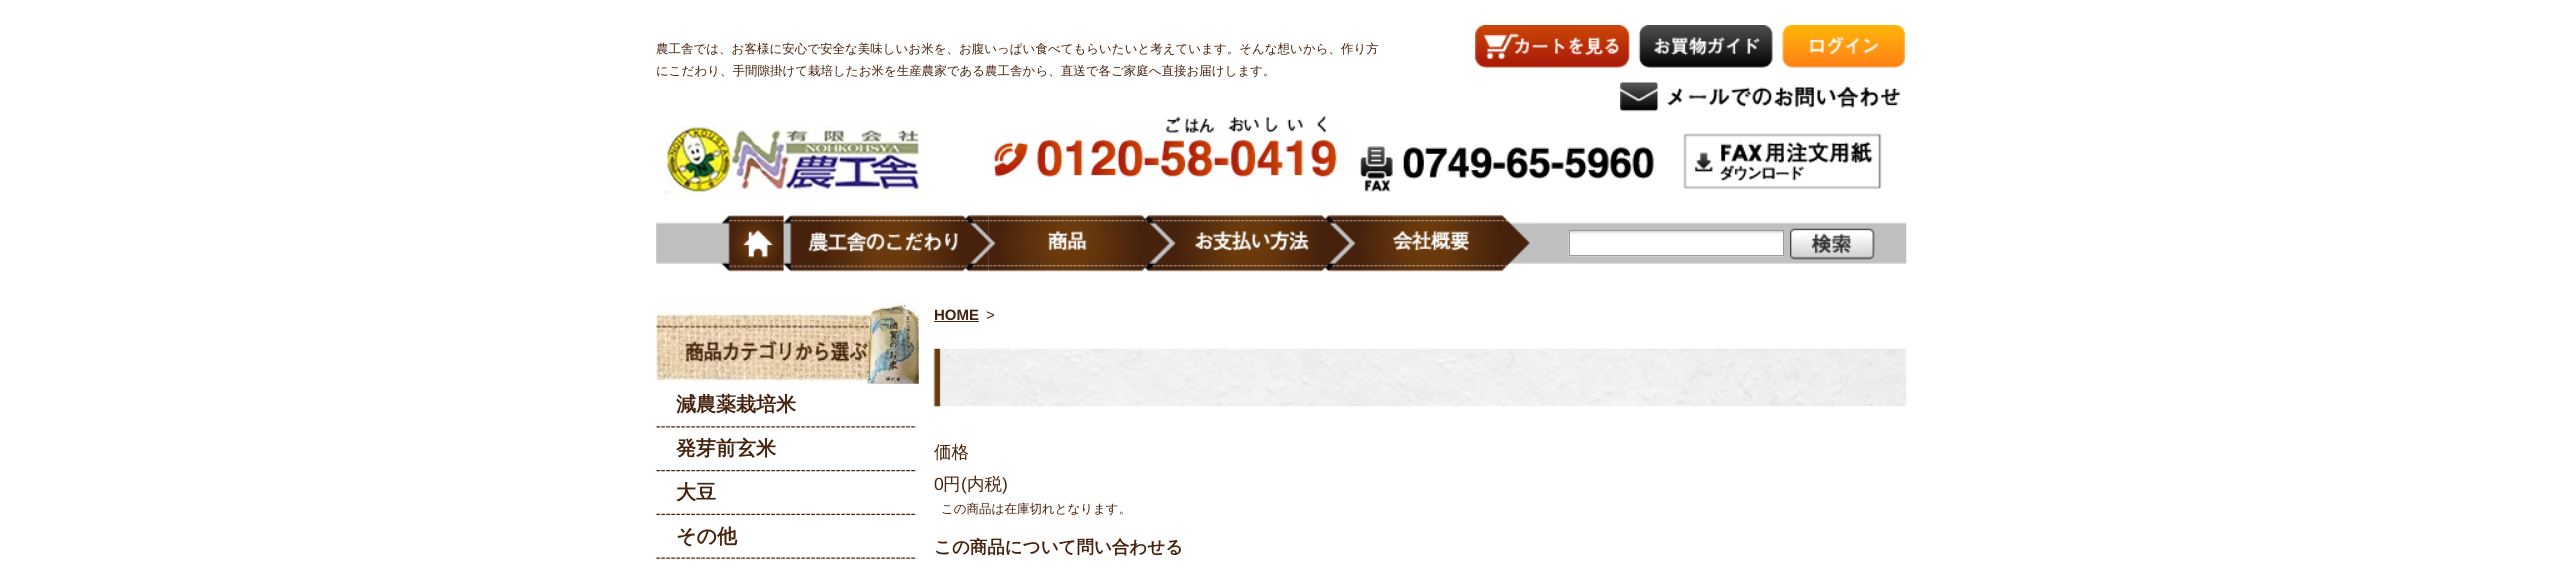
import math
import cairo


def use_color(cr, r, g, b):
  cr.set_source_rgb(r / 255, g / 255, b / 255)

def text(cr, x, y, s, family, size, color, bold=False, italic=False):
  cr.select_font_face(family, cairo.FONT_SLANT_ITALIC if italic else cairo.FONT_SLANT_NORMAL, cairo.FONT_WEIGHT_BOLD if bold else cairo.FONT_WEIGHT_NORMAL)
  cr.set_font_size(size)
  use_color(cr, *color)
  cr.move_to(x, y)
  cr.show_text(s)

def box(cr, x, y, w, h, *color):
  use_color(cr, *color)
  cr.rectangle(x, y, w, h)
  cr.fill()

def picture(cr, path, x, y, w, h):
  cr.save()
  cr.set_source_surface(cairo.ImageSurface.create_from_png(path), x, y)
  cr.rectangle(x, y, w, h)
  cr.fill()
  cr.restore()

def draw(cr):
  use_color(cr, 255, 255, 255)
  cr.paint()
  picture(cr, "img_01.png", 1475, 25, 156, 43)
  picture(cr, "img_02.png", 1638, 25, 135, 43)
  picture(cr, "img_03.png", 1782, 25, 123, 43)
  picture(cr, "img_04.png", 1620, 82, 281, 30)
  picture(cr, "img_05.png", 664, 126, 265, 71)
  picture(cr, "img_06.png", 993, 116, 661, 76)
  picture(cr, "img_07.png", 1683, 133, 199, 56)
  picture(cr, "img_08.png", 656, 222, 1251, 42)
  picture(cr, "img_09.png", 721, 215, 63, 57)
  picture(cr, "img_10.png", 783, 215, 206, 57)
  picture(cr, "img_11.png", 988, 215, 182, 57)
  picture(cr, "img_12.png", 1170, 215, 180, 57)
  picture(cr, "img_13.png", 1350, 215, 180, 57)
  picture(cr, "img_14.png", 1568, 231, 216, 26)
  cr.rectangle(1569.5, 230.5, 214, 25)
  use_color(cr, 153, 153, 153)
  cr.set_line_width(1)
  cr.stroke()
  picture(cr, "img_15.png", 1790, 228, 85, 32)
  picture(cr, "img_16.png", 656, 302, 263, 82)
  picture(cr, "img_17.png", 656, 426, 261, 2)
  picture(cr, "img_18.png", 656, 470, 261, 2)
  picture(cr, "img_19.png", 656, 513, 261, 2)
  picture(cr, "img_20.png", 656, 557, 261, 2)
  box(cr, 934, 321, 45, 1, 70, 33, 12)
  picture(cr, "img_21.png", 933, 348, 974, 59)
  text(cr, 656, 53, "農工舎では、お客様に安心で安全な美味しいお米を、お腹いっぱい食べてもらいたいと考えています。そんな想いから、作り方", "WenQuanYi Zen Hei Medium", 12.5, (70, 33, 12))
  text(cr, 656, 75, "にこだわり、手間隙掛けて栽培したお米を生産農家である農工舎から、直送で各ご家庭へ直接お届けします。", "WenQuanYi Zen Hei Medium", 12.5, (70, 33, 12))
  text(cr, 676, 411, "減農薬栽培米", "WenQuanYi Zen Hei", 20, (70, 33, 12), bold=True)
  text(cr, 676, 455, "発芽前玄米", "WenQuanYi Zen Hei", 20, (70, 33, 12), bold=True)
  text(cr, 676, 499, "大豆", "WenQuanYi Zen Hei", 20, (70, 33, 12), bold=True)
  text(cr, 676, 543, "その他", "WenQuanYi Zen Hei", 20, (70, 33, 12), bold=True)
  text(cr, 934, 320, "HOME", "Liberation Sans", 15, (70, 33, 12), bold=True)
  text(cr, 986, 320, ">", "Liberation Sans", 15, (70, 33, 12))
  text(cr, 934, 458, "価格", "WenQuanYi Zen Hei Medium", 17.5, (70, 33, 12))
  text(cr, 934, 490, "0", "Liberation Sans", 17.5, (70, 33, 12))
  text(cr, 943, 490, "円", "WenQuanYi Zen Hei Medium", 17.5, (70, 33, 12))
  text(cr, 961, 490, "(", "Liberation Sans", 17.5, (70, 33, 12))
  text(cr, 967, 490, "内税", "WenQuanYi Zen Hei Medium", 17.5, (70, 33, 12))
  text(cr, 1002, 490, ")", "Liberation Sans", 17.5, (70, 33, 12))
  text(cr, 941, 513, "この商品は在庫切れとなります。", "WenQuanYi Zen Hei Medium", 12.5, (70, 33, 12))
  text(cr, 934, 553, "この商品について問い合わせる", "WenQuanYi Zen Hei", 17.5, (70, 33, 12), bold=True)


surface = cairo.ImageSurface(cairo.FORMAT_RGB24, 2562, 576)
cr = cairo.Context(surface)
options = cairo.FontOptions()
options.set_hint_metrics(cairo.HINT_METRICS_OFF)
options.set_hint_style(cairo.HINT_STYLE_NONE)
cr.set_font_options(options)
cr.set_miter_limit(4)
draw(cr)
surface.write_to_png("out.png")
